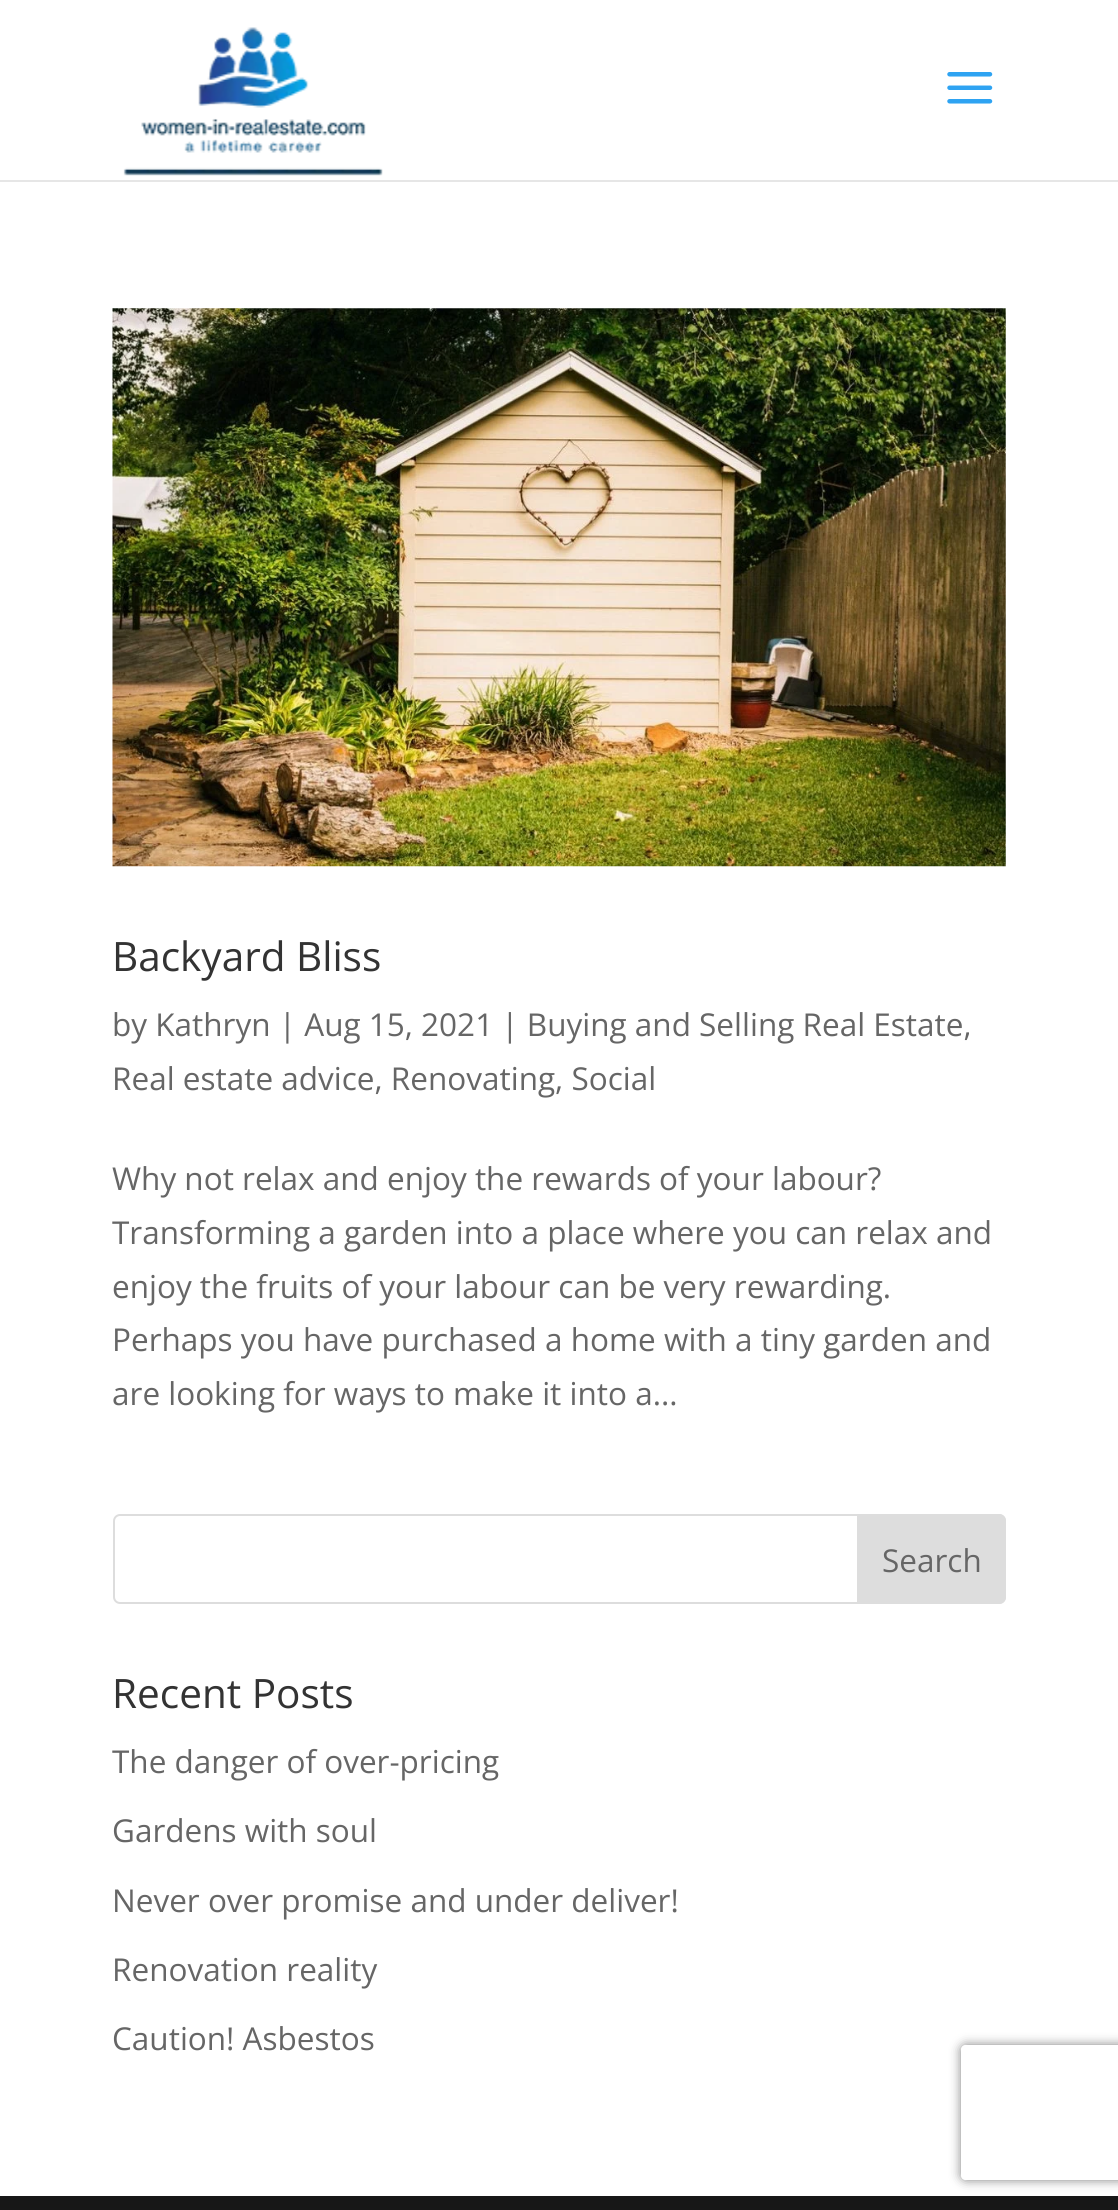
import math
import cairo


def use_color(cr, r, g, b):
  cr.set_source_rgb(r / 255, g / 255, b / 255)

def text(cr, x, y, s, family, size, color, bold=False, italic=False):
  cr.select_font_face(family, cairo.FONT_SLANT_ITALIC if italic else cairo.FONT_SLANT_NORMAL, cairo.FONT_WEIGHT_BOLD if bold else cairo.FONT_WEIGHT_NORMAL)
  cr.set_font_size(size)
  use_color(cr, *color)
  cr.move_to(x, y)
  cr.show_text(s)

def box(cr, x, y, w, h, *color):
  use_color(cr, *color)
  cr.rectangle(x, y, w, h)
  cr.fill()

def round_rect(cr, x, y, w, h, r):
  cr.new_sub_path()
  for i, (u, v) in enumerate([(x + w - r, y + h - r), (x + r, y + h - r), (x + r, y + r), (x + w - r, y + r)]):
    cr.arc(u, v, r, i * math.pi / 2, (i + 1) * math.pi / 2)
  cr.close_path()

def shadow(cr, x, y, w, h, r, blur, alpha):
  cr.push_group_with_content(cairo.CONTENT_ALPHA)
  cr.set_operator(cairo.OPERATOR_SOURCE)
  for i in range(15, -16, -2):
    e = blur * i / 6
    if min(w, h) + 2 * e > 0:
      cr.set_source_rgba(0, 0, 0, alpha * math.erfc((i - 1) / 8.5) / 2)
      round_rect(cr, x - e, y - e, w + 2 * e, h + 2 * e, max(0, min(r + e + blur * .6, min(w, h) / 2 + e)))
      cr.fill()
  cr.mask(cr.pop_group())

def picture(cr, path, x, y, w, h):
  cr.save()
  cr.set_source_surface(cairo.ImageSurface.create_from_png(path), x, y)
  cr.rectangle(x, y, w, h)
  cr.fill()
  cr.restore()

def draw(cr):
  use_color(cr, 255, 255, 255)
  cr.paint()
  box(cr, 0, 180, 1118, 2, 230, 230, 230)
  picture(cr, "img_01.png", 123, 27, 260, 149)
  picture(cr, "img_02.png", 947, 72, 46, 32)
  picture(cr, "img_03.png", 112, 308, 894, 559)
  round_rect(cr, 114, 1515, 891, 88, 6)
  use_color(cr, 221, 221, 221)
  cr.stroke()
  cr.new_path()
  cr.move_to(858, 1515)
  cr.line_to(999, 1515)
  cr.curve_to(1002.5, 1515, 1005, 1517.5, 1005, 1521)
  cr.line_to(1005, 1597)
  cr.curve_to(1005, 1600.5, 1002.5, 1603, 999, 1603)
  cr.line_to(858, 1603)
  cr.close_path()
  cr.fill_preserve()
  cr.stroke()
  box(cr, 0, 2196, 1118, 14, 23, 23, 23)
  cr.save()
  cr.set_fill_rule(cairo.FILL_RULE_EVEN_ODD)
  cr.new_path()
  cr.move_to(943, 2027)
  cr.line_to(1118, 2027)
  cr.line_to(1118, 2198)
  cr.line_to(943, 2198)
  cr.close_path()
  cr.move_to(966, 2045)
  cr.line_to(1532, 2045)
  cr.curve_to(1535, 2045, 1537, 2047, 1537, 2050)
  cr.line_to(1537, 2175)
  cr.curve_to(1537, 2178, 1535, 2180, 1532, 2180)
  cr.line_to(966, 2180)
  cr.curve_to(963, 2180, 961, 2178, 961, 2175)
  cr.line_to(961, 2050)
  cr.curve_to(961, 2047, 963, 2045, 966, 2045)
  cr.close_path()
  cr.clip()
  use_color(cr, 128, 128, 128)
  shadow(cr, 961, 2045, 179, 135, 5, 5.5, 1)
  cr.restore()
  text(cr, 112, 971, "Backyard Bliss", "Open Sans", 40.5, (51, 51, 51))
  text(cr, 112, 1036, "by Kathryn | Aug 15, 2021 | Buying and Selling Real Estate,", "Open Sans", 31.5, (102, 102, 102))
  text(cr, 112, 1090, "Real estate advice, Renovating, Social", "Open Sans", 31.5, (102, 102, 102))
  text(cr, 112, 1190, "Why not relax and enjoy the rewards of your labour?", "Open Sans", 31.5, (102, 102, 102))
  text(cr, 112, 1244, "Transforming a garden into a place where you can relax and", "Open Sans", 31.5, (102, 102, 102))
  text(cr, 112, 1298, "enjoy the fruits of your labour can be very rewarding.", "Open Sans", 31.5, (102, 102, 102))
  text(cr, 112, 1351, "Perhaps you have purchased a home with a tiny garden and", "Open Sans", 31.5, (102, 102, 102))
  text(cr, 112, 1405, "are looking for ways to make it into a...", "Open Sans", 31.5, (102, 102, 102))
  text(cr, 882, 1572, "Search", "Open Sans", 31.5, (102, 102, 102))
  text(cr, 112, 1708, "Recent Posts", "Open Sans", 40.5, (51, 51, 51))
  text(cr, 112, 1773, "The danger of over-pricing", "Open Sans", 31.5, (102, 102, 102))
  text(cr, 112, 1842, "Gardens with soul", "Open Sans", 31.5, (102, 102, 102))
  text(cr, 112, 1912, "Never over promise and under deliver!", "Open Sans", 31.5, (102, 102, 102))
  text(cr, 112, 1981, "Renovation reality", "Open Sans", 31.5, (102, 102, 102))
  text(cr, 112, 2050, "Caution! Asbestos", "Open Sans", 31.5, (102, 102, 102))


surface = cairo.ImageSurface(cairo.FORMAT_RGB24, 1118, 2210)
cr = cairo.Context(surface)
options = cairo.FontOptions()
options.set_hint_metrics(cairo.HINT_METRICS_OFF)
options.set_hint_style(cairo.HINT_STYLE_NONE)
cr.set_font_options(options)
cr.set_miter_limit(4)
draw(cr)
surface.write_to_png("out.png")
